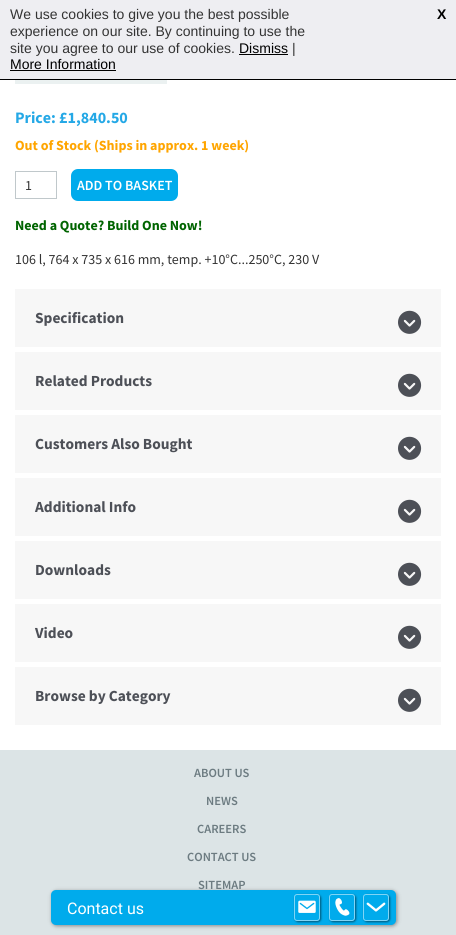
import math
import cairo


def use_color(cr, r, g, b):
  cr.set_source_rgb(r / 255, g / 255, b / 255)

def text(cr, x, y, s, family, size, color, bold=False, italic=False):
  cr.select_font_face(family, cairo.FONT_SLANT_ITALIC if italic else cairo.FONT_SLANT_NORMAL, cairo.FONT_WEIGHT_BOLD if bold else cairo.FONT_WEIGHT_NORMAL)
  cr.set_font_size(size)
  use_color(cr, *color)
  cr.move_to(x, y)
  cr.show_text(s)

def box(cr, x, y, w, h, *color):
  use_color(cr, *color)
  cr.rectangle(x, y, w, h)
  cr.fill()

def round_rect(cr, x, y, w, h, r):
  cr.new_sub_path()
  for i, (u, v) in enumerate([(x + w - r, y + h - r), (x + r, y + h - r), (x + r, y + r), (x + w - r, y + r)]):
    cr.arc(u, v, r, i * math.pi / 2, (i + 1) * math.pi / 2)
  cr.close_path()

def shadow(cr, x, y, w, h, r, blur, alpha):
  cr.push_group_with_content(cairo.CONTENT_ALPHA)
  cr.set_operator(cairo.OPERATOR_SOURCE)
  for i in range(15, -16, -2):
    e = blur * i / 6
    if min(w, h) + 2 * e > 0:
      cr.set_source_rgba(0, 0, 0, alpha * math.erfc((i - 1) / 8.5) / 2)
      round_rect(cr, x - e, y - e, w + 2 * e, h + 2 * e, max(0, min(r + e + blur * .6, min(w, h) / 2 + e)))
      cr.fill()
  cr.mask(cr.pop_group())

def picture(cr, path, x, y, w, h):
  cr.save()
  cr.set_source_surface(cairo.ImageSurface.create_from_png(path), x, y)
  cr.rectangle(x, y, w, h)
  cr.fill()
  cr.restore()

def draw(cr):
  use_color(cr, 255, 255, 255)
  cr.paint()
  box(cr, 0, 0, 456, 79, 238, 238, 242)
  box(cr, 0, 79, 456, 1, 0, 0, 0)
  box(cr, 239, 54, 49, 1, 0, 0, 0)
  box(cr, 10, 70, 106, 1, 0, 0, 0)
  box(cr, 15, 80, 152, 4, 235, 241, 241)
  cr.rectangle(15.5, 171.5, 41, 27)
  use_color(cr, 192, 200, 203)
  cr.set_line_width(1)
  cr.stroke()
  use_color(cr, 0, 171, 236)
  round_rect(cr, 71, 169, 107, 32, 7)
  cr.fill()
  box(cr, 15, 289, 426, 58, 247, 247, 247)
  picture(cr, "img_01.png", 398, 310, 24, 24)
  box(cr, 15, 352, 426, 58, 247, 247, 247)
  picture(cr, "img_01.png", 398, 373, 24, 24)
  box(cr, 15, 415, 426, 58, 247, 247, 247)
  picture(cr, "img_01.png", 398, 436, 24, 24)
  box(cr, 15, 478, 426, 58, 247, 247, 247)
  picture(cr, "img_01.png", 398, 499, 24, 24)
  box(cr, 15, 541, 426, 58, 247, 247, 247)
  picture(cr, "img_01.png", 398, 562, 24, 24)
  box(cr, 15, 604, 426, 58, 247, 247, 247)
  picture(cr, "img_01.png", 398, 625, 24, 24)
  box(cr, 15, 667, 426, 58, 247, 247, 247)
  picture(cr, "img_01.png", 398, 688, 24, 24)
  box(cr, 0, 750, 456, 185, 220, 228, 230)
  use_color(cr, 0, 0, 0)
  shadow(cr, 52, 891, 345, 35, 5, 2, 0.4)
  use_color(cr, 0, 171, 236)
  round_rect(cr, 51, 890, 345, 35, 5)
  cr.fill()
  cr.save()
  cr.set_fill_rule(cairo.FILL_RULE_EVEN_ODD)
  cr.new_path()
  cr.move_to(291, 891)
  cr.line_to(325, 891)
  cr.line_to(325, 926)
  cr.line_to(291, 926)
  cr.close_path()
  cr.move_to(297, 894)
  cr.line_to(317, 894)
  cr.curve_to(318.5, 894, 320, 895.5, 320, 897)
  cr.line_to(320, 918)
  cr.curve_to(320, 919.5, 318.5, 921, 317, 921)
  cr.line_to(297, 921)
  cr.curve_to(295.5, 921, 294, 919.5, 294, 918)
  cr.line_to(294, 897)
  cr.curve_to(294, 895.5, 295.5, 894, 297, 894)
  cr.close_path()
  cr.clip()
  use_color(cr, 0, 0, 0)
  shadow(cr, 295, 895, 26, 27, 3, 1, 0.5)
  cr.restore()
  round_rect(cr, 294.5, 894.5, 25, 26, 2.5)
  cr.set_source_rgba(1, 1, 1, 0.5)
  cr.stroke()
  picture(cr, "img_02.png", 298, 900, 18, 13)
  cr.save()
  cr.set_fill_rule(cairo.FILL_RULE_EVEN_ODD)
  cr.new_path()
  cr.move_to(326, 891)
  cr.line_to(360, 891)
  cr.line_to(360, 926)
  cr.line_to(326, 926)
  cr.close_path()
  cr.move_to(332, 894)
  cr.line_to(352, 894)
  cr.curve_to(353.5, 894, 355, 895.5, 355, 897)
  cr.line_to(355, 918)
  cr.curve_to(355, 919.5, 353.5, 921, 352, 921)
  cr.line_to(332, 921)
  cr.curve_to(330.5, 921, 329, 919.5, 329, 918)
  cr.line_to(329, 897)
  cr.curve_to(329, 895.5, 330.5, 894, 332, 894)
  cr.close_path()
  cr.clip()
  use_color(cr, 0, 0, 0)
  shadow(cr, 330, 895, 26, 27, 3, 1, 0.5)
  cr.restore()
  round_rect(cr, 329.5, 894.5, 25, 26, 2.5)
  cr.stroke()
  picture(cr, "img_03.png", 335, 898, 15, 18)
  cr.save()
  cr.set_fill_rule(cairo.FILL_RULE_EVEN_ODD)
  cr.new_path()
  cr.move_to(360, 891)
  cr.line_to(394, 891)
  cr.line_to(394, 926)
  cr.line_to(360, 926)
  cr.close_path()
  cr.move_to(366, 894)
  cr.line_to(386, 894)
  cr.curve_to(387.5, 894, 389, 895.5, 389, 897)
  cr.line_to(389, 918)
  cr.curve_to(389, 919.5, 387.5, 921, 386, 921)
  cr.line_to(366, 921)
  cr.curve_to(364.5, 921, 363, 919.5, 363, 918)
  cr.line_to(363, 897)
  cr.curve_to(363, 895.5, 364.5, 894, 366, 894)
  cr.close_path()
  cr.clip()
  use_color(cr, 0, 0, 0)
  shadow(cr, 364, 895, 26, 27, 3, 1, 0.5)
  cr.restore()
  round_rect(cr, 363.5, 894.5, 25, 26, 2.5)
  cr.stroke()
  picture(cr, "img_04.png", 366, 902, 20, 10)
  text(cr, 10, 19, "We use cookies to give you the best possible", "Liberation Sans", 14, (51, 51, 51))
  text(cr, 437, 19, "X", "Liberation Sans", 14, (0, 0, 0), bold=True)
  text(cr, 10, 36, "experience on our site. By continuing to use the", "Liberation Sans", 14, (51, 51, 51))
  text(cr, 10, 53, "site you agree to our use of cookies.", "Liberation Sans", 14, (51, 51, 51))
  text(cr, 239, 53, "Dismiss", "Liberation Sans", 14, (0, 0, 0))
  text(cr, 292, 53, "|", "Liberation Sans", 14, (51, 51, 51))
  text(cr, 10, 69, "More Information", "Liberation Sans", 14, (0, 0, 0))
  text(cr, 15, 123, "Price: £1,840.50", "Source Sans Pro", 16, (36, 168, 230), bold=True)
  text(cr, 15, 150, "Out of Stock (Ships in approx. 1 week)", "Source Sans Pro", 14, (255, 165, 0), bold=True)
  text(cr, 25, 190, "1", "Source Sans Pro", 14, (51, 51, 51))
  text(cr, 77, 190, "ADD TO BASKET", "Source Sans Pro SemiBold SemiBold", 14, (255, 255, 255))
  text(cr, 15, 230, "Need a Quote? Build One Now!", "Source Sans Pro", 14, (0, 100, 0), bold=True)
  text(cr, 15, 264, "106 l, 764 x 735 x 616 mm, temp. +10°C...250°C, 230 V", "Source Sans Pro", 14, (51, 51, 51))
  text(cr, 35, 323, "Specification", "Source Sans Pro", 15.4, (77, 80, 87), bold=True)
  text(cr, 35, 386, "Related Products", "Source Sans Pro", 15.4, (77, 80, 87), bold=True)
  text(cr, 35, 449, "Customers Also Bought", "Source Sans Pro", 15.4, (77, 80, 87), bold=True)
  text(cr, 35, 512, "Additional Info", "Source Sans Pro", 15.4, (77, 80, 87), bold=True)
  text(cr, 35, 575, "Downloads", "Source Sans Pro", 15.4, (77, 80, 87), bold=True)
  text(cr, 35, 638, "Video", "Source Sans Pro", 15.4, (77, 80, 87), bold=True)
  text(cr, 35, 701, "Browse by Category", "Source Sans Pro", 15.4, (77, 80, 87), bold=True)
  text(cr, 194, 777, "ABOUT US", "Source Sans Pro SemiBold SemiBold", 12.5, (108, 123, 129))
  text(cr, 206, 805, "NEWS", "Source Sans Pro SemiBold SemiBold", 12.5, (108, 123, 129))
  text(cr, 197, 833, "CAREERS", "Source Sans Pro SemiBold SemiBold", 12.5, (108, 123, 129))
  text(cr, 187, 861, "CONTACT US", "Source Sans Pro SemiBold SemiBold", 12.5, (108, 123, 129))
  text(cr, 198, 889, "SITEMAP", "Source Sans Pro SemiBold SemiBold", 12.5, (108, 123, 129))
  text(cr, 67, 914, "Contact us", "Roboto", 16, (255, 255, 255))


surface = cairo.ImageSurface(cairo.FORMAT_RGB24, 456, 935)
cr = cairo.Context(surface)
options = cairo.FontOptions()
options.set_hint_metrics(cairo.HINT_METRICS_OFF)
options.set_hint_style(cairo.HINT_STYLE_NONE)
cr.set_font_options(options)
cr.set_miter_limit(4)
draw(cr)
surface.write_to_png("out.png")
